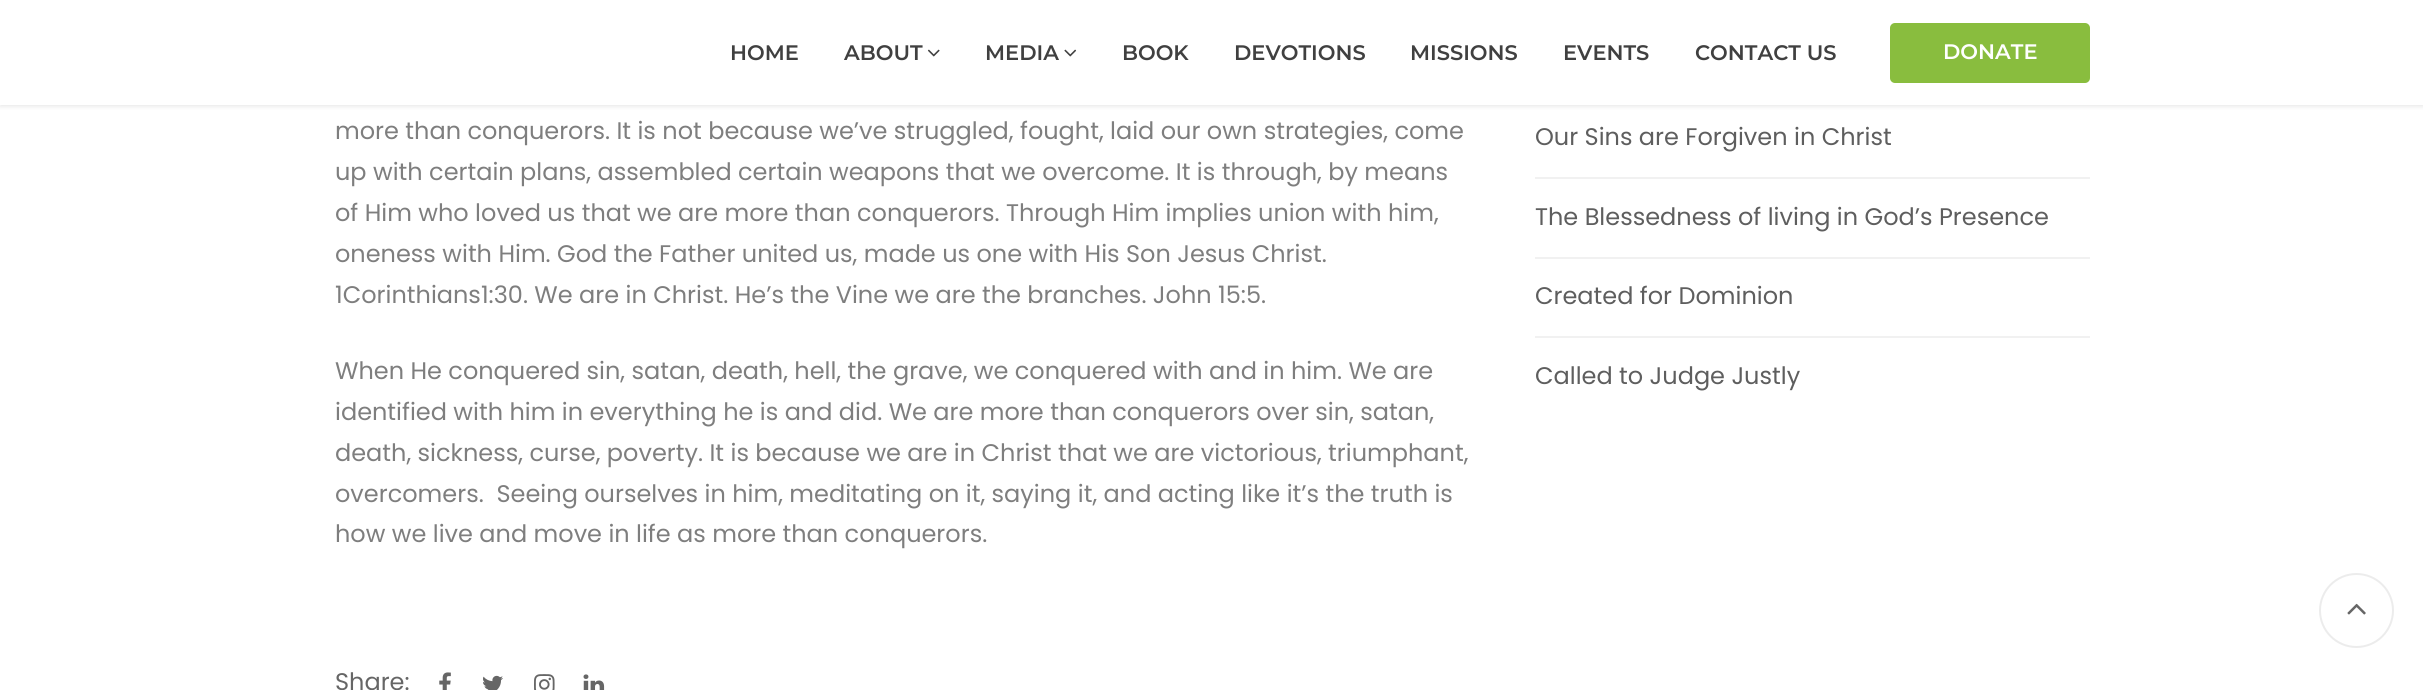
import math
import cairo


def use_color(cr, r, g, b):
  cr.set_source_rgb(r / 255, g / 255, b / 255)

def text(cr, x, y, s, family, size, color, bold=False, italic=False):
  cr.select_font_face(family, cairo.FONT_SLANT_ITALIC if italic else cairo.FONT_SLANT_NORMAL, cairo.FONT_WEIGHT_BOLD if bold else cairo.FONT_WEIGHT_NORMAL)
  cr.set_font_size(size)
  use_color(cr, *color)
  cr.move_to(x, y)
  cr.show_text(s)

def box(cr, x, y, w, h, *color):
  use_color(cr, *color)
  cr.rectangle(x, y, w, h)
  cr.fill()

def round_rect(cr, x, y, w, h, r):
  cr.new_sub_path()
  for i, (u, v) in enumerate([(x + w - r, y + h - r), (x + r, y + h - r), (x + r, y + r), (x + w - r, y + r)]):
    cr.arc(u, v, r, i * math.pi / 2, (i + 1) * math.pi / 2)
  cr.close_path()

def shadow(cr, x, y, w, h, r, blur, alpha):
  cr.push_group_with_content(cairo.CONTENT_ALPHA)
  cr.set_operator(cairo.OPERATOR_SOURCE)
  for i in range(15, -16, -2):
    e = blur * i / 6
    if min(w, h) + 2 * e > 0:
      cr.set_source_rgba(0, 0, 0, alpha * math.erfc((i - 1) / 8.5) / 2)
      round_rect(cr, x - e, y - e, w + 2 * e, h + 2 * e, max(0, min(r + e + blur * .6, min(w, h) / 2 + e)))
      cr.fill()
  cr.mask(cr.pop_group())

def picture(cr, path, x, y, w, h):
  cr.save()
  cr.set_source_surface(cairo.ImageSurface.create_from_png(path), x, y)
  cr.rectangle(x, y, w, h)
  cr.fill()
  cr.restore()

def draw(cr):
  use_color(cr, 255, 255, 255)
  cr.paint()
  use_color(cr, 0, 0, 0)
  shadow(cr, 0, 2, 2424, 105, 0, 2, 0.08)
  box(cr, 0, 0, 2423, 105, 255, 255, 255)
  picture(cr, "img_01.png", 927, 49, 13, 8)
  picture(cr, "img_02.png", 1064, 49, 13, 8)
  use_color(cr, 137, 189, 62)
  round_rect(cr, 1890, 23, 200, 60, 5)
  cr.fill()
  picture(cr, "img_03.png", 439, 672, 12, 18)
  picture(cr, "img_04.png", 483, 675, 20, 15)
  picture(cr, "img_05.png", 534, 674, 21, 16)
  picture(cr, "img_06.png", 583, 674, 22, 16)
  box(cr, 1535, 177, 555, 2, 241, 241, 241)
  box(cr, 1535, 257, 555, 2, 241, 241, 241)
  box(cr, 1535, 336, 555, 2, 241, 241, 241)
  cr.arc(2356.5, 610.5, 36.5, 0, 2 * math.pi)
  use_color(cr, 236, 236, 236)
  cr.stroke()
  picture(cr, "img_07.png", 2347, 603, 19, 12)
  text(cr, 730, 60, "HOME", "Montserrat SemiBold", 21, (64, 64, 64))
  text(cr, 844, 60, "ABOUT", "Montserrat SemiBold", 21, (64, 64, 64))
  text(cr, 985, 60, "MEDIA", "Montserrat SemiBold", 21, (64, 64, 64))
  text(cr, 1122, 60, "BOOK", "Montserrat SemiBold", 21, (64, 64, 64))
  text(cr, 1234, 60, "DEVOTIONS", "Montserrat SemiBold", 21, (64, 64, 64))
  text(cr, 1410, 60, "MISSIONS", "Montserrat SemiBold", 21, (64, 64, 64))
  text(cr, 1563, 60, "EVENTS", "Montserrat SemiBold", 21, (64, 64, 64))
  text(cr, 1695, 60, "CONTACT US", "Montserrat SemiBold", 21, (64, 64, 64))
  text(cr, 1943, 59, "DONATE", "Montserrat SemiBold", 21, (255, 255, 255))
  text(cr, 335, 139, "more than conquerors. It is not because we’ve struggled, fought, laid our own strategies, come", "Poppins", 24, (126, 126, 126))
  text(cr, 335, 180, "up with certain plans, assembled certain weapons that we overcome. It is through, by means", "Poppins", 24, (126, 126, 126))
  text(cr, 335, 221, "of Him who loved us that we are more than conquerors. Through Him implies union with him,", "Poppins", 24, (126, 126, 126))
  text(cr, 335, 262, "oneness with Him. God the Father united us, made us one with His Son Jesus Christ.", "Poppins", 24, (126, 126, 126))
  text(cr, 335, 303, "1Corinthians1:30. We are in Christ. He’s the Vine we are the branches. John 15:5.", "Poppins", 24, (126, 126, 126))
  text(cr, 335, 379, "When He conquered sin, satan, death, hell, the grave, we conquered with and in him. We are", "Poppins", 24, (126, 126, 126))
  text(cr, 335, 420, "identified with him in everything he is and did. We are more than conquerors over sin, satan,", "Poppins", 24, (126, 126, 126))
  text(cr, 335, 461, "death, sickness, curse, poverty. It is because we are in Christ that we are victorious, triumphant,", "Poppins", 24, (126, 126, 126))
  text(cr, 335, 502, "overcomers.  Seeing ourselves in him, meditating on it, saying it, and acting like it’s the truth is", "Poppins", 24, (126, 126, 126))
  text(cr, 335, 542, "how we live and move in life as more than conquerors.", "Poppins", 24, (126, 126, 126))
  text(cr, 335, 690, "Share:", "Poppins", 24, (102, 102, 102))
  text(cr, 1535, 145, "Our Sins are Forgiven in Christ", "Poppins", 24, (94, 94, 94))
  text(cr, 1535, 225, "The Blessedness of living in God’s Presence", "Poppins", 24, (94, 94, 94))
  text(cr, 1535, 304, "Created for Dominion", "Poppins", 24, (94, 94, 94))
  text(cr, 1535, 384, "Called to Judge Justly", "Poppins", 24, (94, 94, 94))


surface = cairo.ImageSurface(cairo.FORMAT_RGB24, 2423, 690)
cr = cairo.Context(surface)
options = cairo.FontOptions()
options.set_hint_metrics(cairo.HINT_METRICS_OFF)
options.set_hint_style(cairo.HINT_STYLE_NONE)
cr.set_font_options(options)
cr.set_miter_limit(4)
draw(cr)
surface.write_to_png("out.png")
